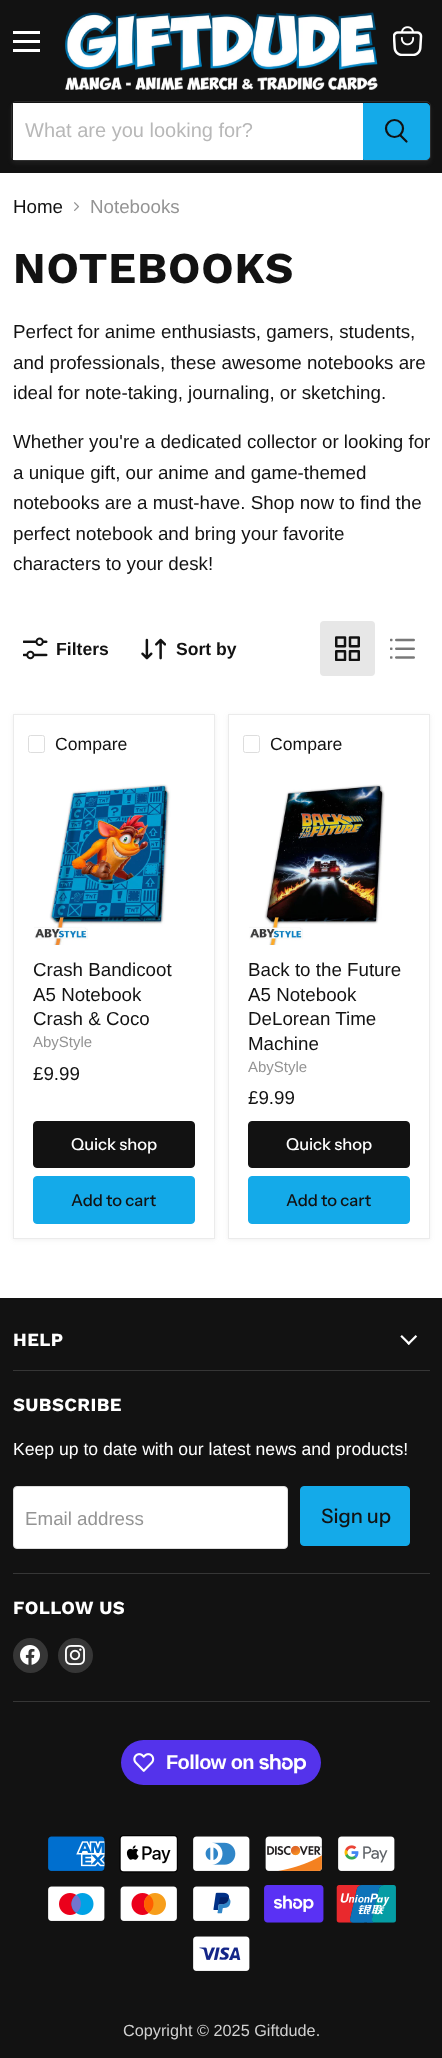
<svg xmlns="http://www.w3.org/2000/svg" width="442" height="2058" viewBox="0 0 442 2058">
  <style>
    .t1 { font: 20px Liberation Sans; fill: #b8b8b8; }
    .t2 { font: 18.75px Liberation Sans; fill: #121212; }
    .t3 { font: 18.75px Liberation Sans; fill: #949494; }
    .t4 { font: bold 44px Work Sans; letter-spacing: 0.9px; fill: #121212; }
    .t5 { font: bold 17.6px Liberation Sans; fill: #121212; }
    .t6 { font: 17.6px Liberation Sans; fill: #121212; }
    .t7 { font: 15px Liberation Sans; fill: #949494; }
    .t8 { font: 500 16.5px Instrument Sans; fill: #fff; }
    .t9 { font: 500 16.5px Instrument Sans; fill: #121212; }
    .t10 { font: bold 18.5px Work Sans; letter-spacing: 0.4px; fill: #fff; }
    .t11 { font: 17.6px Liberation Sans; fill: #fff; }
    .t12 { font: 500 20px Instrument Sans; fill: #121212; }
    .t13 { font: bold 20px Liberation Sans; letter-spacing: -0.6px; fill: #fff; }
    .t14 { font: 16.25px Liberation Sans; fill: #d0d0d0; }
  </style>
  <rect width="100%" height="100%" fill="#fff"/>
  <rect x="0" y="0" width="442" height="173" fill="#121212"/>
  <rect x="13" y="31" width="27" height="3" fill="#fff"/>
  <rect x="13" y="40" width="27" height="3" fill="#fff"/>
  <rect x="13" y="49" width="27" height="3" fill="#fff"/>
  <image x="393" y="26" width="30" height="30" href="images/1.png"/>
  <image x="65" y="12" width="313" height="78" href="images/2.png"/>
  <rect x="11" y="104" width="420" height="60" rx="5" fill="#8080801c" filter="blur(2px)"/>
  <rect x="11.5" y="101.5" width="419" height="59" rx="4.5" fill="none" stroke="#80808033"/>
  <rect x="13" y="103" width="350" height="57" fill="#fff"/>
  <text x="25" y="137" class="t1">What are you looking for?</text>
  <path d="M363.5 103.5H426C428 103.5 429.5 105 429.5 107V156C429.5 158 428 159.5 426 159.5H363.5Z" fill="#14aae9" stroke="#14aae9"/>
  <path d="M406.5 141.5L400.5 135.5" fill="none" stroke="#121212" stroke-width="2.2" stroke-linecap="round"/>
  <circle cx="394.5" cy="128.5" r="8.5" fill="none" stroke="#121212" stroke-width="2.2"/>
  <text x="13" y="213" class="t2">Home</text>
  <image x="74" y="202" width="6" height="9" href="images/3.png"/>
  <text x="90" y="213" class="t3">Notebooks</text>
  <text x="13" y="283" class="t4">NOTEBOOKS</text>
  <text x="13" y="338" class="t2">Perfect for anime enthusiasts, gamers, students,</text>
  <text x="13" y="369" class="t2">and professionals, these awesome notebooks are</text>
  <text x="13" y="399" class="t2">ideal for note-taking, journaling, or sketching.</text>
  <text x="13" y="448" class="t2">Whether you're a dedicated collector or looking for</text>
  <text x="13" y="479" class="t2">a unique gift, our anime and game-themed</text>
  <text x="13" y="509" class="t2">notebooks are a must-have. Shop now to find the</text>
  <text x="13" y="540" class="t2">perfect notebook and bring your favorite</text>
  <text x="13" y="570" class="t2">characters to your desk!</text>
  <image x="23" y="637" width="25" height="23" href="images/4.png"/>
  <text x="56" y="655" class="t5">Filters</text>
  <image x="141" y="638" width="25" height="22" href="images/5.png"/>
  <text x="176" y="655" class="t5">Sort by</text>
  <rect x="320" y="621" width="55" height="55" rx="4" fill="#e7e7e7"/>
  <image x="335" y="636" width="25" height="25" href="images/6.png"/>
  <image x="390" y="638" width="25" height="21" href="images/7.png"/>
  <rect x="13" y="715" width="202" height="525" fill="#8080801c" filter="blur(2.5px)"/>
  <rect x="13.5" y="714.5" width="201" height="524" fill="#fff" stroke="#ebebeb"/>
  <rect x="28.5" y="735.5" width="16" height="17" rx="2" fill="none" stroke="#ddd"/>
  <text x="55" y="750" class="t6">Compare</text>
  <image x="34" y="784" width="137" height="161" href="images/8.png"/>
  <text x="33" y="976" class="t2">Crash Bandicoot</text>
  <text x="33" y="1001" class="t2">A5 Notebook</text>
  <text x="33" y="1025" class="t2">Crash &amp; Coco</text>
  <text x="33" y="1047" class="t7">AbyStyle</text>
  <text x="33" y="1080" class="t2">£9.99</text>
  <rect x="33.5" y="1121.5" width="161" height="46" rx="3.5" fill="#121212" stroke="#121212"/>
  <text x="71" y="1150" class="t8">Quick shop</text>
  <rect x="33.5" y="1176.5" width="161" height="47" rx="3.5" fill="#14aae9" stroke="#14aae9"/>
  <text x="71" y="1206" class="t9">Add to cart</text>
  <rect x="228" y="715" width="202" height="525" fill="#8080801c" filter="blur(2.5px)"/>
  <rect x="228.5" y="714.5" width="201" height="524" fill="#fff" stroke="#ebebeb"/>
  <rect x="243.5" y="735.5" width="16" height="17" rx="2" fill="none" stroke="#ddd"/>
  <text x="270" y="750" class="t6">Compare</text>
  <image x="249" y="784" width="136" height="161" href="images/9.png"/>
  <text x="248" y="976" class="t2">Back to the Future</text>
  <text x="248" y="1001" class="t2">A5 Notebook</text>
  <text x="248" y="1025" class="t2">DeLorean Time</text>
  <text x="248" y="1050" class="t2">Machine</text>
  <text x="248" y="1072" class="t7">AbyStyle</text>
  <text x="248" y="1104" class="t2">£9.99</text>
  <rect x="248.5" y="1121.5" width="161" height="46" rx="3.5" fill="#121212" stroke="#121212"/>
  <text x="286" y="1150" class="t8">Quick shop</text>
  <rect x="248.5" y="1176.5" width="161" height="47" rx="3.5" fill="#14aae9" stroke="#14aae9"/>
  <text x="286" y="1206" class="t9">Add to cart</text>
  <rect x="0" y="1298" width="442" height="760" fill="#121212"/>
  <rect x="13" y="1370" width="417" height="1" fill="#363636"/>
  <text x="13" y="1346" class="t10">HELP</text>
  <image x="400" y="1335" width="18" height="10" href="images/10.png"/>
  <rect x="13" y="1573" width="417" height="1" fill="#363636"/>
  <text x="13" y="1411" class="t10">SUBSCRIBE</text>
  <text x="13" y="1455" class="t11">Keep up to date with our latest news and products!</text>
  <rect x="13.5" y="1486.5" width="274" height="62" rx="3.5" fill="#fff" stroke="#ddd"/>
  <text x="25" y="1525" class="t3">Email address</text>
  <rect x="300.5" y="1486.5" width="109" height="59" rx="3.5" fill="#14aae9" stroke="#14aae9"/>
  <text x="321" y="1523" class="t12">Sign up</text>
  <rect x="13" y="1701" width="417" height="1" fill="#363636"/>
  <text x="13" y="1614" class="t10">FOLLOW US</text>
  <circle cx="30.5" cy="1655.5" r="17.5" fill="#363636"/>
  <image x="20" y="1645" width="20" height="20" href="images/11.png"/>
  <circle cx="75.5" cy="1655.5" r="17.5" fill="#363636"/>
  <image x="65" y="1645" width="20" height="20" href="images/12.png"/>
  <rect x="121" y="1740" width="200" height="45" rx="22.5" fill="#5433eb"/>
  <image x="133" y="1753" width="22" height="19" href="images/13.png"/>
  <text x="166" y="1769" class="t13">Follow on</text>
  <image x="259" y="1754" width="47" height="20" href="images/14.png"/>
  <image x="48" y="1836" width="57" height="35" href="images/15.png"/>
  <image x="119" y="1835" width="59" height="38" href="images/16.png"/>
  <image x="193" y="1836" width="57" height="35" href="images/17.png"/>
  <image x="265" y="1836" width="57" height="35" href="images/18.png"/>
  <image x="338" y="1836" width="57" height="35" href="images/19.png"/>
  <image x="48" y="1886" width="57" height="35" href="images/20.png"/>
  <image x="120" y="1886" width="57" height="35" href="images/21.png"/>
  <image x="193" y="1886" width="57" height="35" href="images/22.png"/>
  <image x="264" y="1885" width="60" height="38" href="images/23.png"/>
  <image x="336" y="1885" width="60" height="38" href="images/24.png"/>
  <image x="193" y="1936" width="57" height="35" href="images/25.png"/>
  <text x="123" y="2036" class="t14">Copyright © 2025 Giftdude.</text>
</svg>
